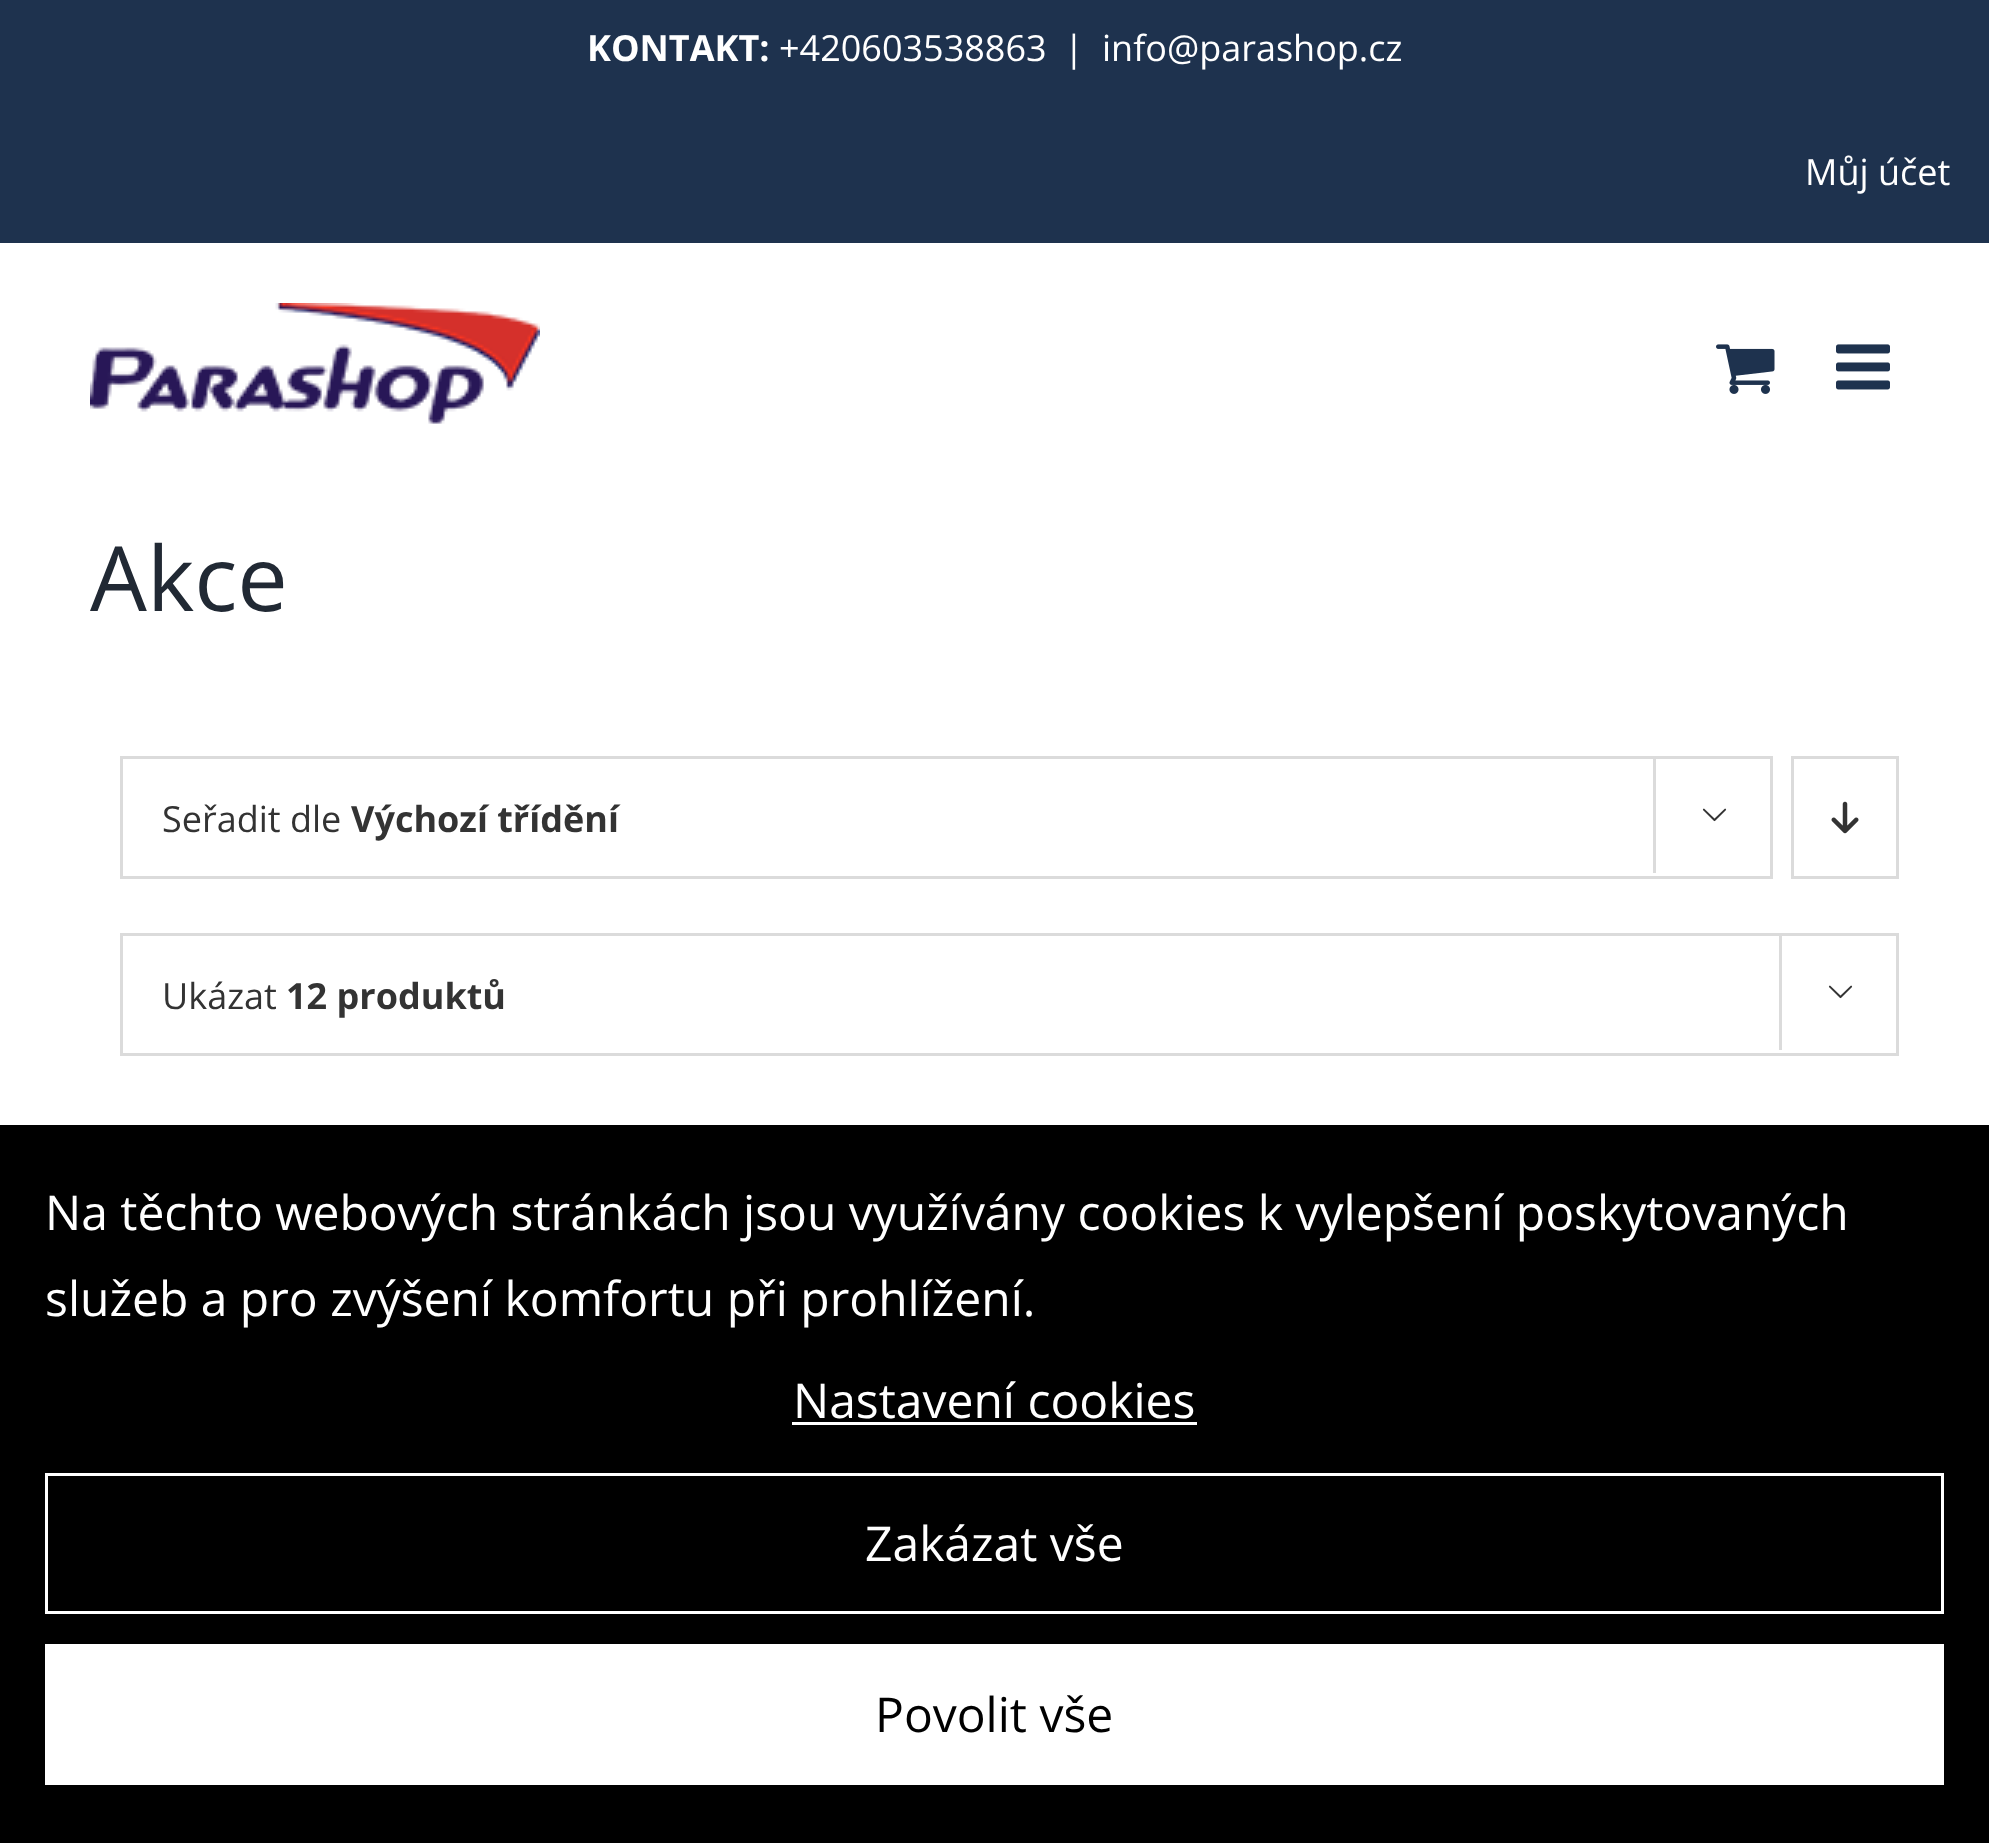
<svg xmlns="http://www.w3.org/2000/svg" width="1989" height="1843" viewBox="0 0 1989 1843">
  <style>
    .t1 { font: bold 36px Open Sans; fill: #fff; }
    .t2 { font: 36px Open Sans; fill: #fff; }
    .t3 { font: 90px Open Sans; fill: #212934; }
    .t4 { font: 36px Open Sans; fill: #333; }
    .t5 { font: bold 36px Open Sans; fill: #333; }
    .t6 { font: 48px Open Sans; fill: #fff; }
    .t7 { font: 48px Open Sans; fill: #000; }
  </style>
  <rect width="100%" height="100%" fill="#fff"/>
  <rect x="0" y="0" width="1989" height="243" fill="#1e324e"/>
  <text x="587" y="61" class="t1">KONTAKT:</text>
  <text x="779" y="61" class="t2">+420603538863</text>
  <text x="1064" y="61" class="t2">|</text>
  <text x="1102" y="61" class="t2">info@parashop.cz</text>
  <text x="1805" y="185" class="t2">Můj účet</text>
  <image x="90" y="303" width="450" height="121" href="images/1.png"/>
  <image x="1716" y="344" width="59" height="50" href="images/2.png"/>
  <image x="1836" y="344" width="54" height="46" href="images/3.png"/>
  <text x="90" y="611" class="t3">Akce</text>
  <rect x="121.5" y="757.5" width="1650" height="120" fill="none" stroke="#dbdbdb" stroke-width="3"/>
  <text x="162" y="832" class="t4">Seřadit dle</text>
  <text x="351" y="832" class="t5">Výchozí třídění</text>
  <rect x="1653" y="756" width="3" height="117" fill="#dbdbdb"/>
  <image x="1702" y="808" width="25" height="14" href="images/4.png"/>
  <rect x="1792.5" y="757.5" width="105" height="120" fill="none" stroke="#dbdbdb" stroke-width="3"/>
  <image x="1831" y="801" width="28" height="33" href="images/5.png"/>
  <rect x="121.5" y="934.5" width="1776" height="120" fill="none" stroke="#dbdbdb" stroke-width="3"/>
  <text x="162" y="1009" class="t4">Ukázat</text>
  <text x="286" y="1009" class="t5">12 produktů</text>
  <rect x="1779" y="933" width="3" height="117" fill="#dbdbdb"/>
  <image x="1828" y="985" width="25" height="14" href="images/4.png"/>
  <rect x="0" y="1125" width="1989" height="718" fill="#000"/>
  <text x="45" y="1230" class="t6">Na těchto webových stránkách jsou využívány cookies k vylepšení poskytovaných</text>
  <text x="45" y="1316" class="t6">služeb a pro zvýšení komfortu při prohlížení.</text>
  <text x="793" y="1418" class="t6">Nastavení cookies</text>
  <rect x="792" y="1422" width="405" height="3" fill="#fff"/>
  <rect x="46.5" y="1474.5" width="1896" height="138" fill="none" stroke="#fff" stroke-width="3"/>
  <text x="865" y="1561" class="t6">Zakázat vše</text>
  <rect x="45" y="1644" width="1899" height="141" fill="#fff"/>
  <text x="875" y="1732" class="t7">Povolit vše</text>
</svg>
